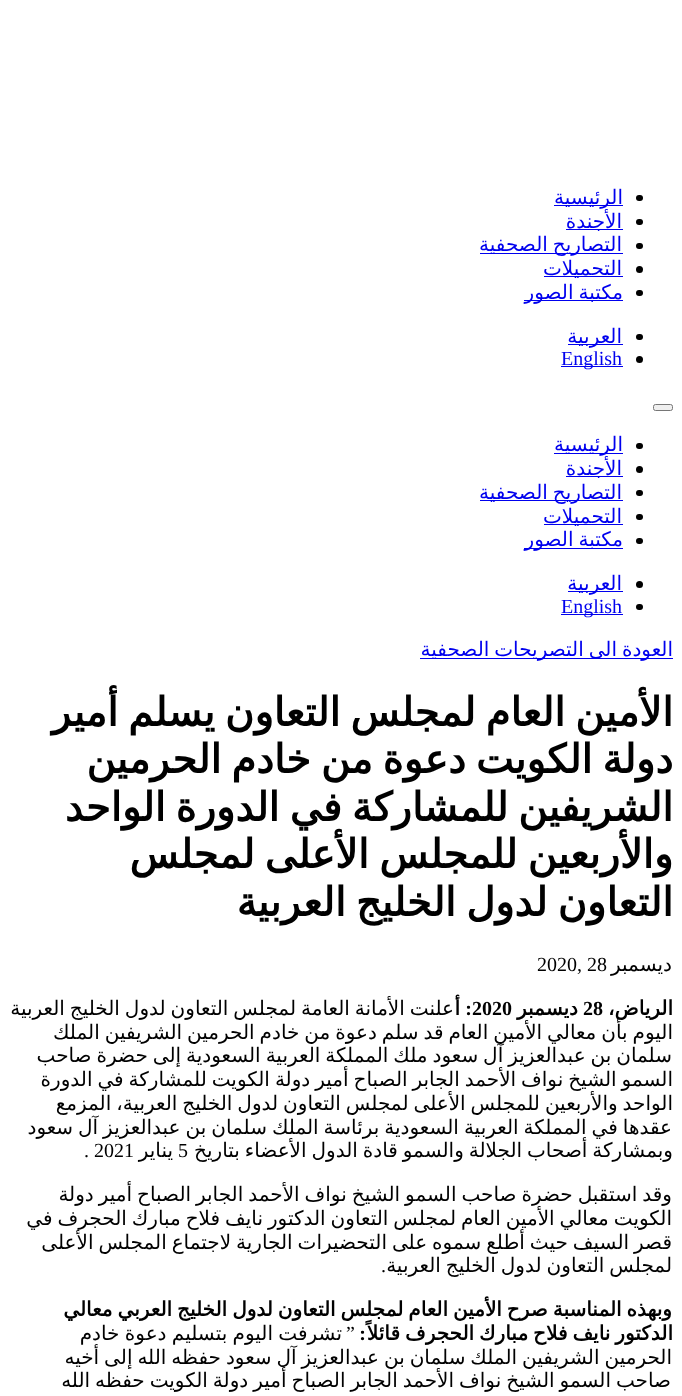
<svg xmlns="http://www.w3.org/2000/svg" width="682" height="1396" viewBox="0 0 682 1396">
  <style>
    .t1 { font: 20px DejaVu Sans; direction: rtl; fill: #00e; }
    .t2 { font: 20px Liberation Serif; fill: #00e; }
    .t3 { font: bold 40px DejaVu Sans; direction: rtl; fill: #000; }
    .t4 { font: 20px DejaVu Sans; direction: rtl; fill: #000; }
    .t5 { font: 20px Liberation Serif; fill: #000; }
    .t6 { font: bold 20px DejaVu Sans; direction: rtl; fill: #000; }
    .t7 { font: bold 20px Liberation Serif; fill: #000; }
    .t8 { font: bold 20px Liberation Serif; direction: rtl; fill: #000; }
    .t9 { font: 20px Liberation Serif; direction: rtl; fill: #000; }
  </style>
  <rect width="100%" height="100%" fill="#fff"/>
  <rect x="636" y="195" width="7" height="6" rx="3" fill="#000"/>
  <rect x="554" y="205" width="69" height="1" fill="#00e"/>
  <text x="623" y="204" class="t1">الرئيسية</text>
  <rect x="636" y="219" width="7" height="6" rx="3" fill="#000"/>
  <rect x="566" y="229" width="57" height="1" fill="#00e"/>
  <text x="622" y="228" class="t1">الأجندة</text>
  <rect x="636" y="243" width="7" height="6" rx="3" fill="#000"/>
  <rect x="480" y="253" width="143" height="1" fill="#00e"/>
  <text x="622" y="251" word-spacing="-1.4" class="t1">التصاريح الصحفية</text>
  <circle cx="639.5" cy="269.5" r="3.5" fill="#000"/>
  <rect x="544" y="276" width="79" height="1" fill="#00e"/>
  <text x="622" y="275" class="t1">التحميلات</text>
  <rect x="636" y="290" width="7" height="6" rx="3" fill="#000"/>
  <rect x="524" y="300" width="99" height="1" fill="#00e"/>
  <text x="623" y="299" word-spacing="-1.4" class="t1">مكتبة الصور</text>
  <rect x="636" y="334" width="7" height="6" rx="3" fill="#000"/>
  <rect x="568" y="344" width="55" height="1" fill="#00e"/>
  <text x="622" y="343" class="t1">العربية</text>
  <circle cx="639.5" cy="359.5" r="3.5" fill="#000"/>
  <rect x="561" y="366" width="62" height="1" fill="#00e"/>
  <text x="561" y="365" class="t2">English</text>
  <rect x="653.5" y="404.5" width="19" height="6" rx="2" fill="#efefef" stroke="#767676"/>
  <rect x="636" y="443" width="7" height="6" rx="3" fill="#000"/>
  <rect x="554" y="453" width="69" height="1" fill="#00e"/>
  <text x="623" y="451" class="t1">الرئيسية</text>
  <circle cx="639.5" cy="469.5" r="3.5" fill="#000"/>
  <rect x="566" y="476" width="57" height="1" fill="#00e"/>
  <text x="622" y="475" class="t1">الأجندة</text>
  <rect x="636" y="490" width="7" height="6" rx="3" fill="#000"/>
  <rect x="480" y="500" width="143" height="1" fill="#00e"/>
  <text x="622" y="499" word-spacing="-1.4" class="t1">التصاريح الصحفية</text>
  <rect x="636" y="514" width="7" height="6" rx="3" fill="#000"/>
  <rect x="544" y="524" width="79" height="1" fill="#00e"/>
  <text x="622" y="523" class="t1">التحميلات</text>
  <rect x="636" y="538" width="7" height="6" rx="3" fill="#000"/>
  <rect x="524" y="548" width="99" height="1" fill="#00e"/>
  <text x="623" y="546" word-spacing="-1.4" class="t1">مكتبة الصور</text>
  <circle cx="639.5" cy="584.5" r="3.5" fill="#000"/>
  <rect x="568" y="591" width="55" height="1" fill="#00e"/>
  <text x="622" y="590" class="t1">العربية</text>
  <rect x="636" y="604" width="7" height="6" rx="3" fill="#000"/>
  <rect x="561" y="614" width="62" height="1" fill="#00e"/>
  <text x="561" y="613" class="t2">English</text>
  <rect x="420" y="658" width="253" height="1" fill="#00e"/>
  <text x="673" y="656" word-spacing="-1.4" class="t1">العودة الى التصريحات الصحفية</text>
  <text x="673" y="726" word-spacing="-2.75" class="t3">الأمين العام لمجلس التعاون يسلم أمير</text>
  <text x="673" y="773" word-spacing="-2.75" class="t3">دولة الكويت دعوة من خادم الحرمين</text>
  <text x="673" y="821" word-spacing="-2.75" class="t3">الشريفين للمشاركة في الدورة الواحد</text>
  <text x="673" y="868" word-spacing="-2.75" class="t3">والأربعين للمجلس الأعلى لمجلس</text>
  <text x="673" y="916" word-spacing="-2.75" class="t3">التعاون لدول الخليج العربية</text>
  <text x="672" y="971" class="t4">ديسمبر</text>
  <text x="537" y="971" class="t5">2020, 28</text>
  <text x="460" y="1015" class="t6">أ</text>
  <text x="454" y="1015" word-spacing="-1.4" class="t4">علنت الأمانة العامة لمجلس التعاون لدول الخليج العربية</text>
  <text x="673" y="1015" class="t6">الرياض،</text>
  <text x="583" y="1015" class="t7">28</text>
  <text x="578" y="1015" class="t6">ديسمبر</text>
  <text x="472" y="1015" class="t7">2020</text>
  <text x="472" y="1015" class="t8">:</text>
  <text x="673" y="1039" word-spacing="-1.4" class="t4">اليوم بأن معالي الأمين العام قد سلم دعوة من خادم الحرمين الشريفين الملك</text>
  <text x="672" y="1062" word-spacing="-1.4" class="t4">سلمان بن عبدالعزيز آل سعود ملك المملكة العربية السعودية إلى حضرة صاحب</text>
  <text x="673" y="1086" word-spacing="-1.4" class="t4">السمو الشيخ نواف الأحمد الجابر الصباح أمير دولة الكويت للمشاركة في الدورة</text>
  <text x="673" y="1110" word-spacing="-1.4" class="t4">الواحد والأربعين للمجلس الأعلى لمجلس التعاون لدول الخليج العربية، المزمع</text>
  <text x="672" y="1134" word-spacing="-1.4" class="t4">عقدها في المملكة العربية السعودية برئاسة الملك سلمان بن عبدالعزيز آل سعود</text>
  <text x="673" y="1157" word-spacing="-1.4" class="t4">وبمشاركة أصحاب الجلالة والسمو قادة الدول الأعضاء بتاريخ</text>
  <text x="178" y="1157" class="t5">5</text>
  <text x="173" y="1157" class="t4">يناير</text>
  <text x="84" y="1157" class="t5">. 2021</text>
  <text x="672" y="1201" word-spacing="-1.4" class="t4">وقد استقبل حضرة صاحب السمو الشيخ نواف الأحمد الجابر الصباح أمير دولة</text>
  <text x="672" y="1225" word-spacing="-1.4" class="t4">الكويت معالي الأمين العام لمجلس التعاون الدكتور نايف فلاح مبارك الحجرف في</text>
  <text x="672" y="1249" word-spacing="-1.4" class="t4">قصر السيف حيث أطلع سموه على التحضيرات الجارية لاجتماع المجلس الأعلى</text>
  <text x="672" y="1272" word-spacing="-1.4" class="t4">لمجلس التعاون لدول الخليج العربية</text>
  <text x="386" y="1272" class="t9">.</text>
  <text x="672" y="1316" word-spacing="-1.4" class="t6">وبهذه المناسبة صرح الأمين العام لمجلس التعاون لدول الخليج العربي معالي</text>
  <text x="366" y="1340" class="t8">:</text>
  <text x="673" y="1340" word-spacing="-1.4" class="t6">الدكتور نايف فلاح مبارك الحجرف قائلاً</text>
  <text x="355" y="1340" class="t9">”</text>
  <text x="342" y="1340" word-spacing="-1" class="t4">تشرفت اليوم بتسليم دعوة خادم</text>
  <text x="672" y="1364" word-spacing="-1.4" class="t4">الحرمين الشريفين الملك سلمان بن عبدالعزيز آل سعود حفظه الله إلى أخيه</text>
  <text x="671" y="1387" word-spacing="-1.4" class="t4">صاحب السمو الشيخ نواف الأحمد الجابر الصباح أمير دولة الكويت حفظه الله</text>
</svg>
